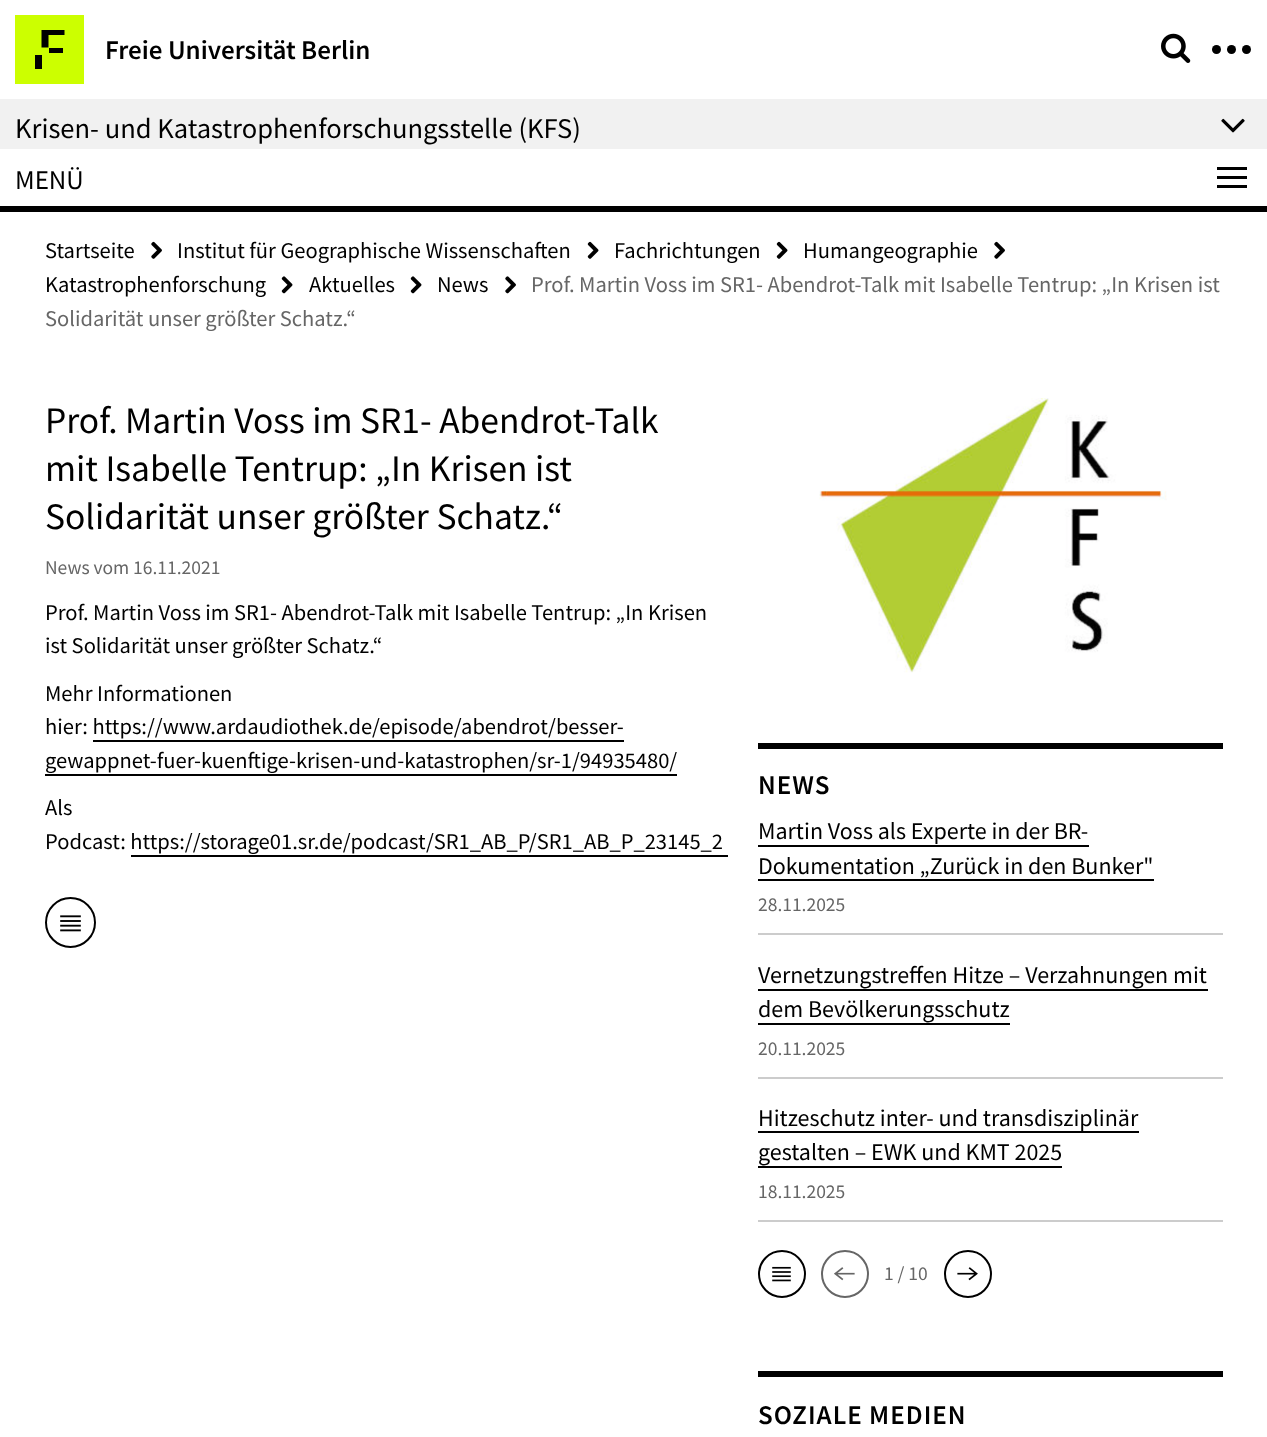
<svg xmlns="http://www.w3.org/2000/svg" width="1267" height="1437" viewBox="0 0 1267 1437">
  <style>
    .t1 { font: 600 27px Source Sans Pro; fill: #000; }
    .t2 { font: 28.5px Source Sans Pro; fill: #000; }
    .t3 { font: 27px Source Sans Pro; fill: #000; }
    .t4 { font: 22.5px Source Sans Pro; fill: #000; }
    .t5 { font: 22.5px Source Sans Pro; fill: #666; }
    .t6 { font: 37.5px Source Sans Pro; fill: #000; }
    .t7 { font: 19.5px Source Sans Pro; fill: #666; }
    .t8 { font: 600 27px Source Sans Pro; letter-spacing: 1px; fill: #000; }
    .t9 { font: 24px Source Sans Pro; fill: #000; }
  </style>
  <rect width="100%" height="100%" fill="#fff"/>
  <rect x="15" y="15" width="69" height="69" fill="#cf0"/>
  <path d="M41.5 30H64.5V35H48.5V47.5H41.5Z" fill="#000"/>
  <rect x="49" y="48" width="14" height="5" fill="#000"/>
  <rect x="35" y="55" width="7" height="14" fill="#000"/>
  <text x="105" y="59" class="t1">Freie Universität Berlin</text>
  <image x="1161" y="33" width="30" height="30" href="images/1.png"/>
  <circle cx="1216.5" cy="49.5" r="4.5" fill="#000"/>
  <circle cx="1231.5" cy="49.5" r="4.5" fill="#000"/>
  <circle cx="1246.5" cy="49.5" r="4.5" fill="#000"/>
  <rect x="0" y="99" width="1267" height="50" fill="#f1f1f1"/>
  <text x="15" y="138" class="t2">Krisen- und Katastrophenforschungsstelle (KFS)</text>
  <image x="1221" y="118" width="24" height="15" href="images/2.png"/>
  <rect x="0" y="206" width="1267" height="6" fill="#000"/>
  <text x="15" y="189" class="t3">MENÜ</text>
  <rect x="1217" y="167" width="30" height="3" fill="#000"/>
  <rect x="1217" y="176" width="30" height="3" fill="#000"/>
  <rect x="1217" y="185" width="30" height="3" fill="#000"/>
  <text x="45" y="258" class="t4">Startseite</text>
  <image x="151" y="241" width="11" height="18" href="images/3.png"/>
  <text x="177" y="258" class="t4">Institut für Geographische Wissenschaften</text>
  <image x="587" y="241" width="12" height="18" href="images/4.png"/>
  <text x="614" y="258" class="t4">Fachrichtungen</text>
  <image x="776" y="241" width="12" height="18" href="images/4.png"/>
  <text x="803" y="258" class="t4">Humangeographie</text>
  <image x="994" y="241" width="11" height="18" href="images/3.png"/>
  <text x="45" y="292" class="t4">Katastrophenforschung</text>
  <image x="281" y="276" width="12" height="18" href="images/5.png"/>
  <text x="309" y="292" class="t4">Aktuelles</text>
  <image x="410" y="276" width="12" height="18" href="images/5.png"/>
  <text x="437" y="292" class="t4">News</text>
  <image x="505" y="276" width="11" height="18" href="images/6.png"/>
  <text x="531" y="292" class="t5">Prof. Martin Voss im SR1- Abendrot-Talk mit Isabelle Tentrup: „In Krisen ist</text>
  <text x="45" y="326" class="t5">Solidarität unser größter Schatz.“</text>
  <text x="45" y="433" class="t6">Prof. Martin Voss im SR1- Abendrot-Talk</text>
  <text x="45" y="481" class="t6">mit Isabelle Tentrup: „In Krisen ist</text>
  <text x="45" y="529" class="t6">Solidarität unser größter Schatz.“</text>
  <text x="45" y="574" class="t7">News vom 16.11.2021</text>
  <text x="45" y="620" class="t4">Prof. Martin Voss im SR1- Abendrot-Talk mit Isabelle Tentrup: „In Krisen</text>
  <text x="45" y="653" class="t4">ist Solidarität unser größter Schatz.“</text>
  <text x="45" y="701" class="t4">Mehr Informationen</text>
  <text x="45" y="734" class="t4">hier: https://www.ardaudiothek.de/episode/abendrot/besser-</text>
  <text x="45" y="768" class="t4">gewappnet-fuer-kuenftige-krisen-und-katastrophen/sr-1/94935480/</text>
  <rect x="93" y="740" width="531" height="2" fill="#000"/>
  <rect x="45" y="774" width="632" height="2" fill="#000"/>
  <text x="45" y="815" class="t4">Als</text>
  <text x="45" y="849" class="t4">Podcast: https://storage01.sr.de/podcast/SR1_AB_P/SR1_AB_P_23145_2</text>
  <rect x="131" y="855" width="597" height="2" fill="#000"/>
  <circle cx="70.5" cy="922.5" r="24.5" fill="none" stroke="#000" stroke-width="2"/>
  <image x="60" y="915" width="21" height="17" href="images/7.png"/>
  <image x="819" y="398" width="348" height="275" href="images/8.png"/>
  <rect x="758" y="743" width="465" height="6" fill="#000"/>
  <text x="758" y="794" class="t8">NEWS</text>
  <rect x="758" y="933" width="465" height="2" fill="#ccc"/>
  <text x="758" y="839" class="t9">Martin Voss als Experte in der BR-</text>
  <rect x="758" y="845" width="331" height="2" fill="#000"/>
  <text x="758" y="874" class="t9">Dokumentation „Zurück in den Bunker"</text>
  <rect x="758" y="879" width="396" height="2" fill="#000"/>
  <text x="758" y="911" class="t7">28.11.2025</text>
  <rect x="758" y="1077" width="465" height="2" fill="#ccc"/>
  <text x="758" y="983" class="t9">Vernetzungstreffen Hitze – Verzahnungen mit</text>
  <rect x="758" y="989" width="450" height="2" fill="#000"/>
  <text x="758" y="1017" class="t9">dem Bevölkerungsschutz</text>
  <rect x="758" y="1023" width="252" height="2" fill="#000"/>
  <text x="758" y="1055" class="t7">20.11.2025</text>
  <rect x="758" y="1220" width="465" height="2" fill="#ccc"/>
  <text x="758" y="1126" class="t9">Hitzeschutz inter- und transdisziplinär</text>
  <rect x="758" y="1131" width="381" height="2" fill="#000"/>
  <text x="758" y="1160" class="t9">gestalten – EWK und KMT 2025</text>
  <rect x="758" y="1166" width="304" height="2" fill="#000"/>
  <text x="758" y="1198" class="t7">18.11.2025</text>
  <circle cx="782" cy="1274" r="23" fill="none" stroke="#000" stroke-width="2"/>
  <image x="772" y="1266" width="19" height="16" href="images/9.png"/>
  <circle cx="845" cy="1274" r="23" fill="none" stroke="#666" stroke-width="2"/>
  <image x="834" y="1267" width="21" height="14" href="images/10.png"/>
  <text x="884" y="1280" class="t7">1 / 10</text>
  <circle cx="968" cy="1274" r="23" fill="none" stroke="#000" stroke-width="2"/>
  <image x="957" y="1267" width="21" height="14" href="images/11.png"/>
  <rect x="758" y="1371" width="465" height="6" fill="#000"/>
  <text x="758" y="1424" class="t8">SOZIALE MEDIEN</text>
</svg>
